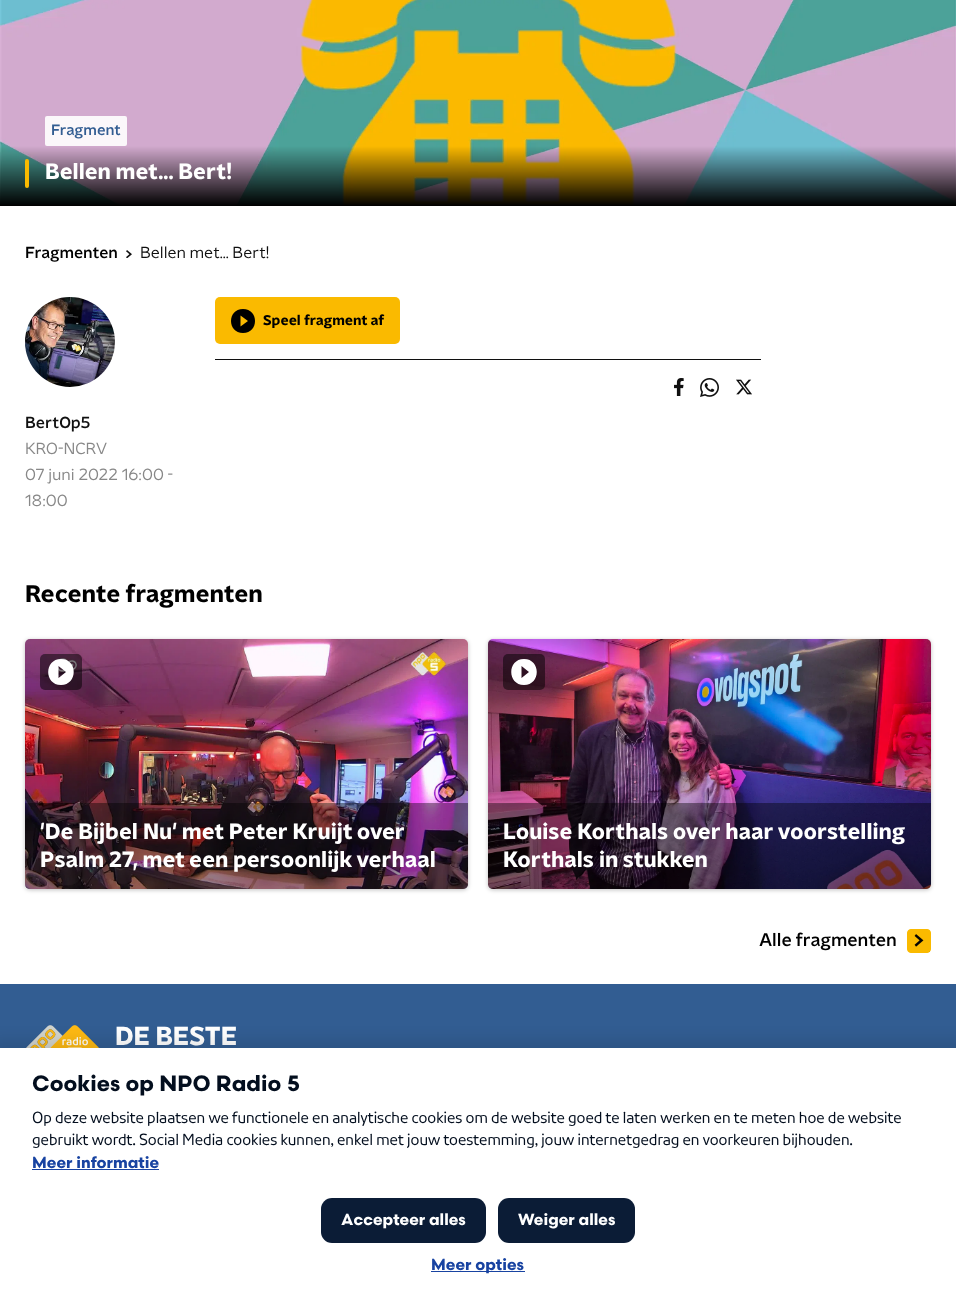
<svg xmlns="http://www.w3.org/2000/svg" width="956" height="1301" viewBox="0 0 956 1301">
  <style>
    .t1 { font: 500 15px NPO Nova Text; fill: #325d92; }
    .t2 { font: bold 22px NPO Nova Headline; fill: #fff; }
    .t3 { font: 500 16px NPO Nova Text; fill: #000; }
    .t4 { font: 16px NPO Nova Text; fill: #101010; }
    .t5 { font: bold 14px NPO Nova Headline; fill: #000; }
    .t6 { font: 500 16px NPO Nova Text; fill: #101010; }
    .t7 { font: 16px NPO Nova Text; fill: #888; }
    .t8 { font: bold 24px NPO Nova Headline; fill: #000; }
    .t9 { font: 500 18px NPO Nova Text; fill: #000; }
    .t10 { font: bold 26px NPO Nova Headline; fill: #fff; }
    .t11 { font: bold 22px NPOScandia; fill: #030e1e; }
    .t12 { font: 16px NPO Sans; fill: #030e1e; }
    .t13 { font: bold 16px NPOScandia; fill: #1843a1; }
    .t14 { font: bold 16px NPOScandia; fill: #fff; }
  </style>
  <rect width="100%" height="100%" fill="#fff"/>
  <image x="0" y="0" width="956" height="206" href="images/1.png"/>
  <rect x="45" y="116" width="82" height="30" rx="2" fill="#fbf7fa"/>
  <text x="51" y="135" class="t1">Fragment</text>
  <rect x="25" y="159" width="4" height="29" rx="2" fill="#faba00"/>
  <text x="45" y="179" class="t2">Bellen met... Bert!</text>
  <text x="25" y="258" class="t3">Fragmenten</text>
  <image x="126" y="250" width="6" height="8" href="images/2.png"/>
  <text x="140" y="258" class="t4">Bellen met... Bert!</text>
  <rect x="215" y="297" width="185" height="47" rx="5" fill="#faba00"/>
  <path d="M243 309C227 309 227 333 243 333C259 333 259 309 243 309ZM240.5 326.5V315.5L248 321Z" fill="#000"/>
  <text x="263" y="325" class="t5">Speel fragment af</text>
  <rect x="215" y="359" width="546" height="1" fill="#101010"/>
  <image x="674" y="378" width="10" height="18" href="images/3.png"/>
  <image x="700" y="378" width="19" height="19" href="images/4.png"/>
  <image x="736" y="379" width="16" height="16" href="images/5.png"/>
  <image x="25" y="297" width="90" height="90" href="images/6.png"/>
  <text x="25" y="428" class="t6">BertOp5</text>
  <text x="25" y="454" class="t7">KRO-NCRV</text>
  <text x="25" y="480" class="t7">07 juni 2022 16:00 -</text>
  <text x="25" y="506" class="t7">18:00</text>
  <text x="25" y="602" class="t8">Recente fragmenten</text>
  <rect x="25" y="640" width="443" height="250" rx="5" fill="#00000040" filter="blur(2px)"/>
  <image x="25" y="639" width="443" height="250" href="images/7.png"/>
  <rect x="40" y="654" width="42" height="36" rx="5" fill="#00000080"/>
  <path d="M61 659C44 659 44 685 61 685C78 685 78 659 61 659ZM58.5 678V666L66 672Z" fill="#fff"/>
  <path d="M25 803H468V884C468 887 466 889 463 889H30C27 889 25 887 25 884Z" fill="#00000066"/>
  <text x="40" y="839" class="t2">'De Bijbel Nu' met Peter Kruijt over</text>
  <text x="40" y="867" class="t2">Psalm 27, met een persoonlijk verhaal</text>
  <rect x="488" y="640" width="443" height="250" rx="5" fill="#00000040" filter="blur(2px)"/>
  <image x="488" y="639" width="443" height="250" href="images/8.png"/>
  <rect x="503" y="654" width="42" height="36" rx="5" fill="#00000080"/>
  <path d="M524 659C507 659 507 685 524 685C541 685 541 659 524 659ZM521.5 678V666L529 672Z" fill="#fff"/>
  <path d="M488 803H931V884C931 887 929 889 926 889H493C490 889 488 887 488 884Z" fill="#00000066"/>
  <text x="503" y="839" class="t2">Louise Korthals over haar voorstelling</text>
  <text x="503" y="867" class="t2">Korthals in stukken</text>
  <text x="759" y="946" class="t9">Alle fragmenten</text>
  <image x="907" y="929" width="24" height="24" href="images/9.png"/>
  <rect x="0" y="984" width="956" height="64" fill="#325d92"/>
  <image x="26" y="1025" width="73" height="23" href="images/10.png"/>
  <text x="115" y="1045" class="t10">DE BESTE</text>
  <rect x="-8" y="1040" width="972" height="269" fill="#0000001a" filter="blur(7.5px)"/>
  <rect x="0" y="1048" width="956" height="253" fill="#fff"/>
  <text x="32" y="1091" class="t11">Cookies op NPO Radio 5</text>
  <text x="32" y="1123" class="t12">Op deze website plaatsen we functionele en analytische cookies om de website goed te laten werken en te meten hoe de website</text>
  <text x="32" y="1145" class="t12">gebruikt wordt. Social Media cookies kunnen, enkel met jouw toestemming, jouw internetgedrag en voorkeuren bijhouden.</text>
  <text x="32" y="1168" class="t13">Meer informatie</text>
  <rect x="32" y="1169" width="127" height="1" fill="#1843a1"/>
  <rect x="321" y="1198" width="165" height="45" rx="11" fill="#0b1c36"/>
  <text x="341" y="1225" class="t14">Accepteer alles</text>
  <rect x="498" y="1198" width="137" height="45" rx="11" fill="#0b1c36"/>
  <text x="518" y="1225" class="t14">Weiger alles</text>
  <rect x="431" y="1271" width="94" height="1" fill="#1843a1"/>
  <text x="431" y="1270" class="t13">Meer opties</text>
</svg>
